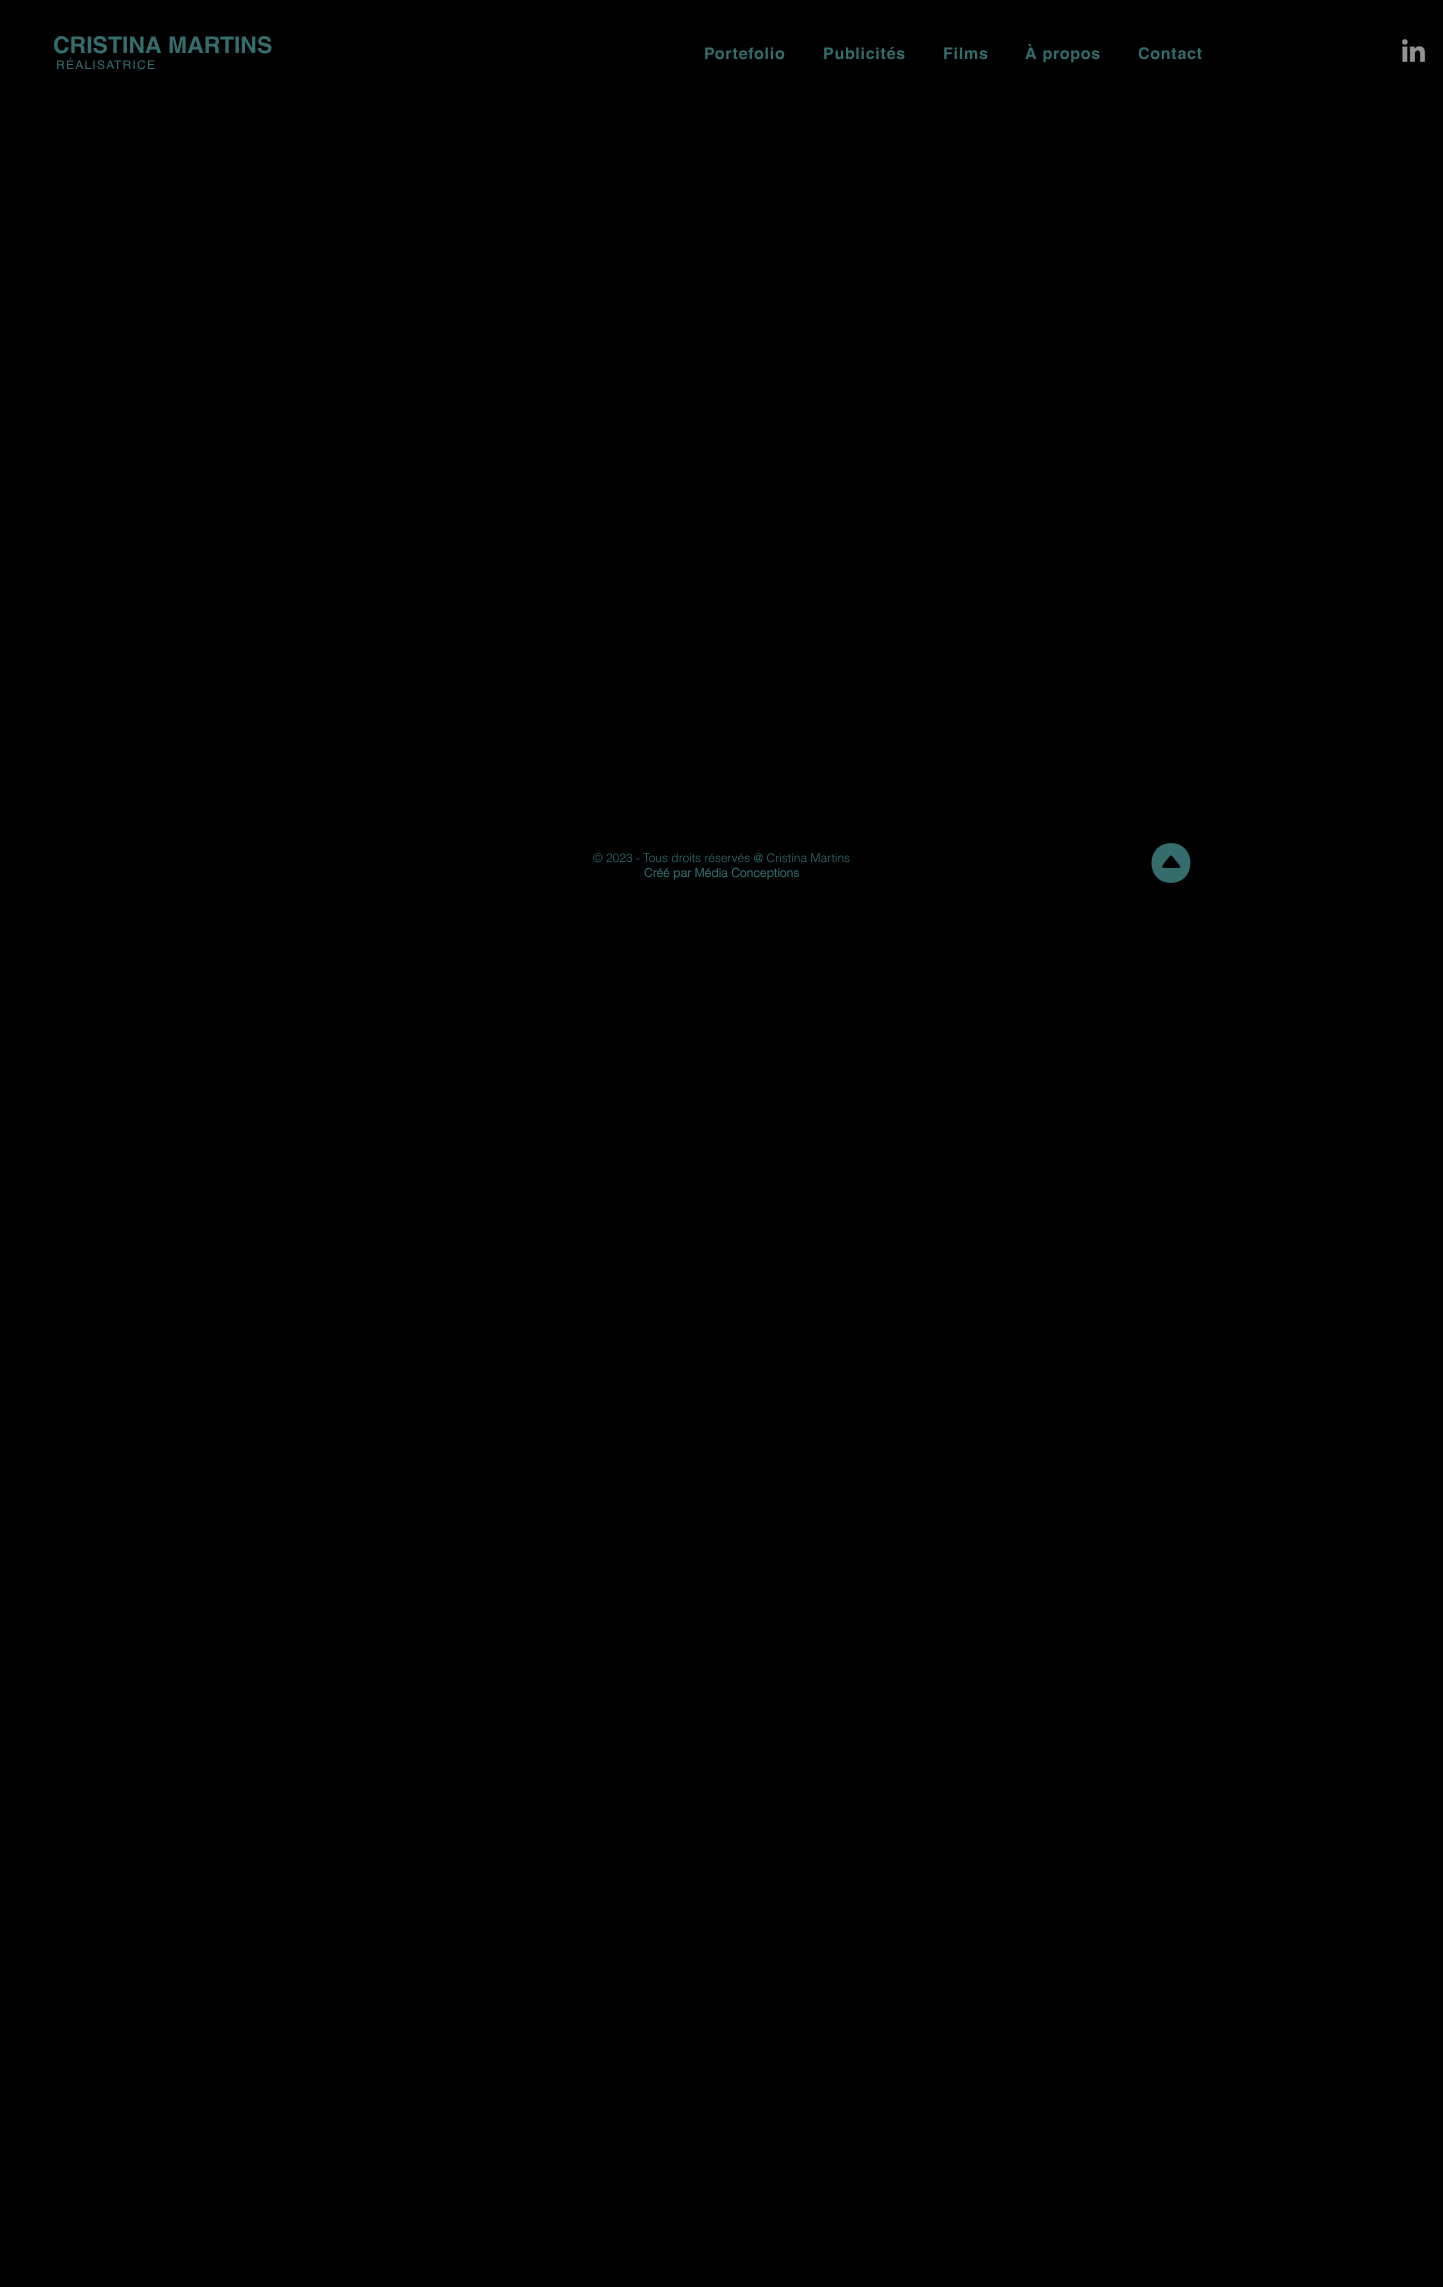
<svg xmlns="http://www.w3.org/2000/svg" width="1443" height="2287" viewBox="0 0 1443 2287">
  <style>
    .t1 { font: bold 23px helvetica; fill: #356c6c; }
    .t2 { font: 12px helvetica; letter-spacing: 1.25px; fill: #356c6c; }
    .t3 { font: bold 16px helvetica; letter-spacing: 0.75px; fill: #356c6c; }
    .t4 { font: 300 12px helvetica; fill: #356c6c; }
    .t5 { font: bold 12px 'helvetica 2'; fill: #356c6c; }
  </style>
  <rect width="100%" height="100%" fill="#000"/>
  <text x="53" y="53" class="t1">CRISTINA MARTINS</text>
  <text x="56" y="69" class="t2">RÉALISATRICE</text>
  <text x="704" y="59" class="t3">Portefolio</text>
  <text x="823" y="59" class="t3">Publicités</text>
  <text x="943" y="59" class="t3">Films</text>
  <text x="1025" y="59" class="t3">À propos</text>
  <text x="1138" y="59" class="t3">Contact</text>
  <image x="1402" y="39" width="24" height="23" href="images/1.png"/>
  <text x="593" y="862" class="t4">© 2023 - Tous droits réservés @ Cristina Martins</text>
  <text x="644" y="877" class="t5">Créé par Média Conceptions</text>
  <path d="M1171 843C1145 843 1145 883 1171 883C1197 883 1197 843 1171 843ZM1179 868H1166C1160 868 1162 866 1165 862L1170 856C1172 854 1175 860 1176 861C1176 861 1183 868 1179 868Z" fill="#356c6c"/>
</svg>
